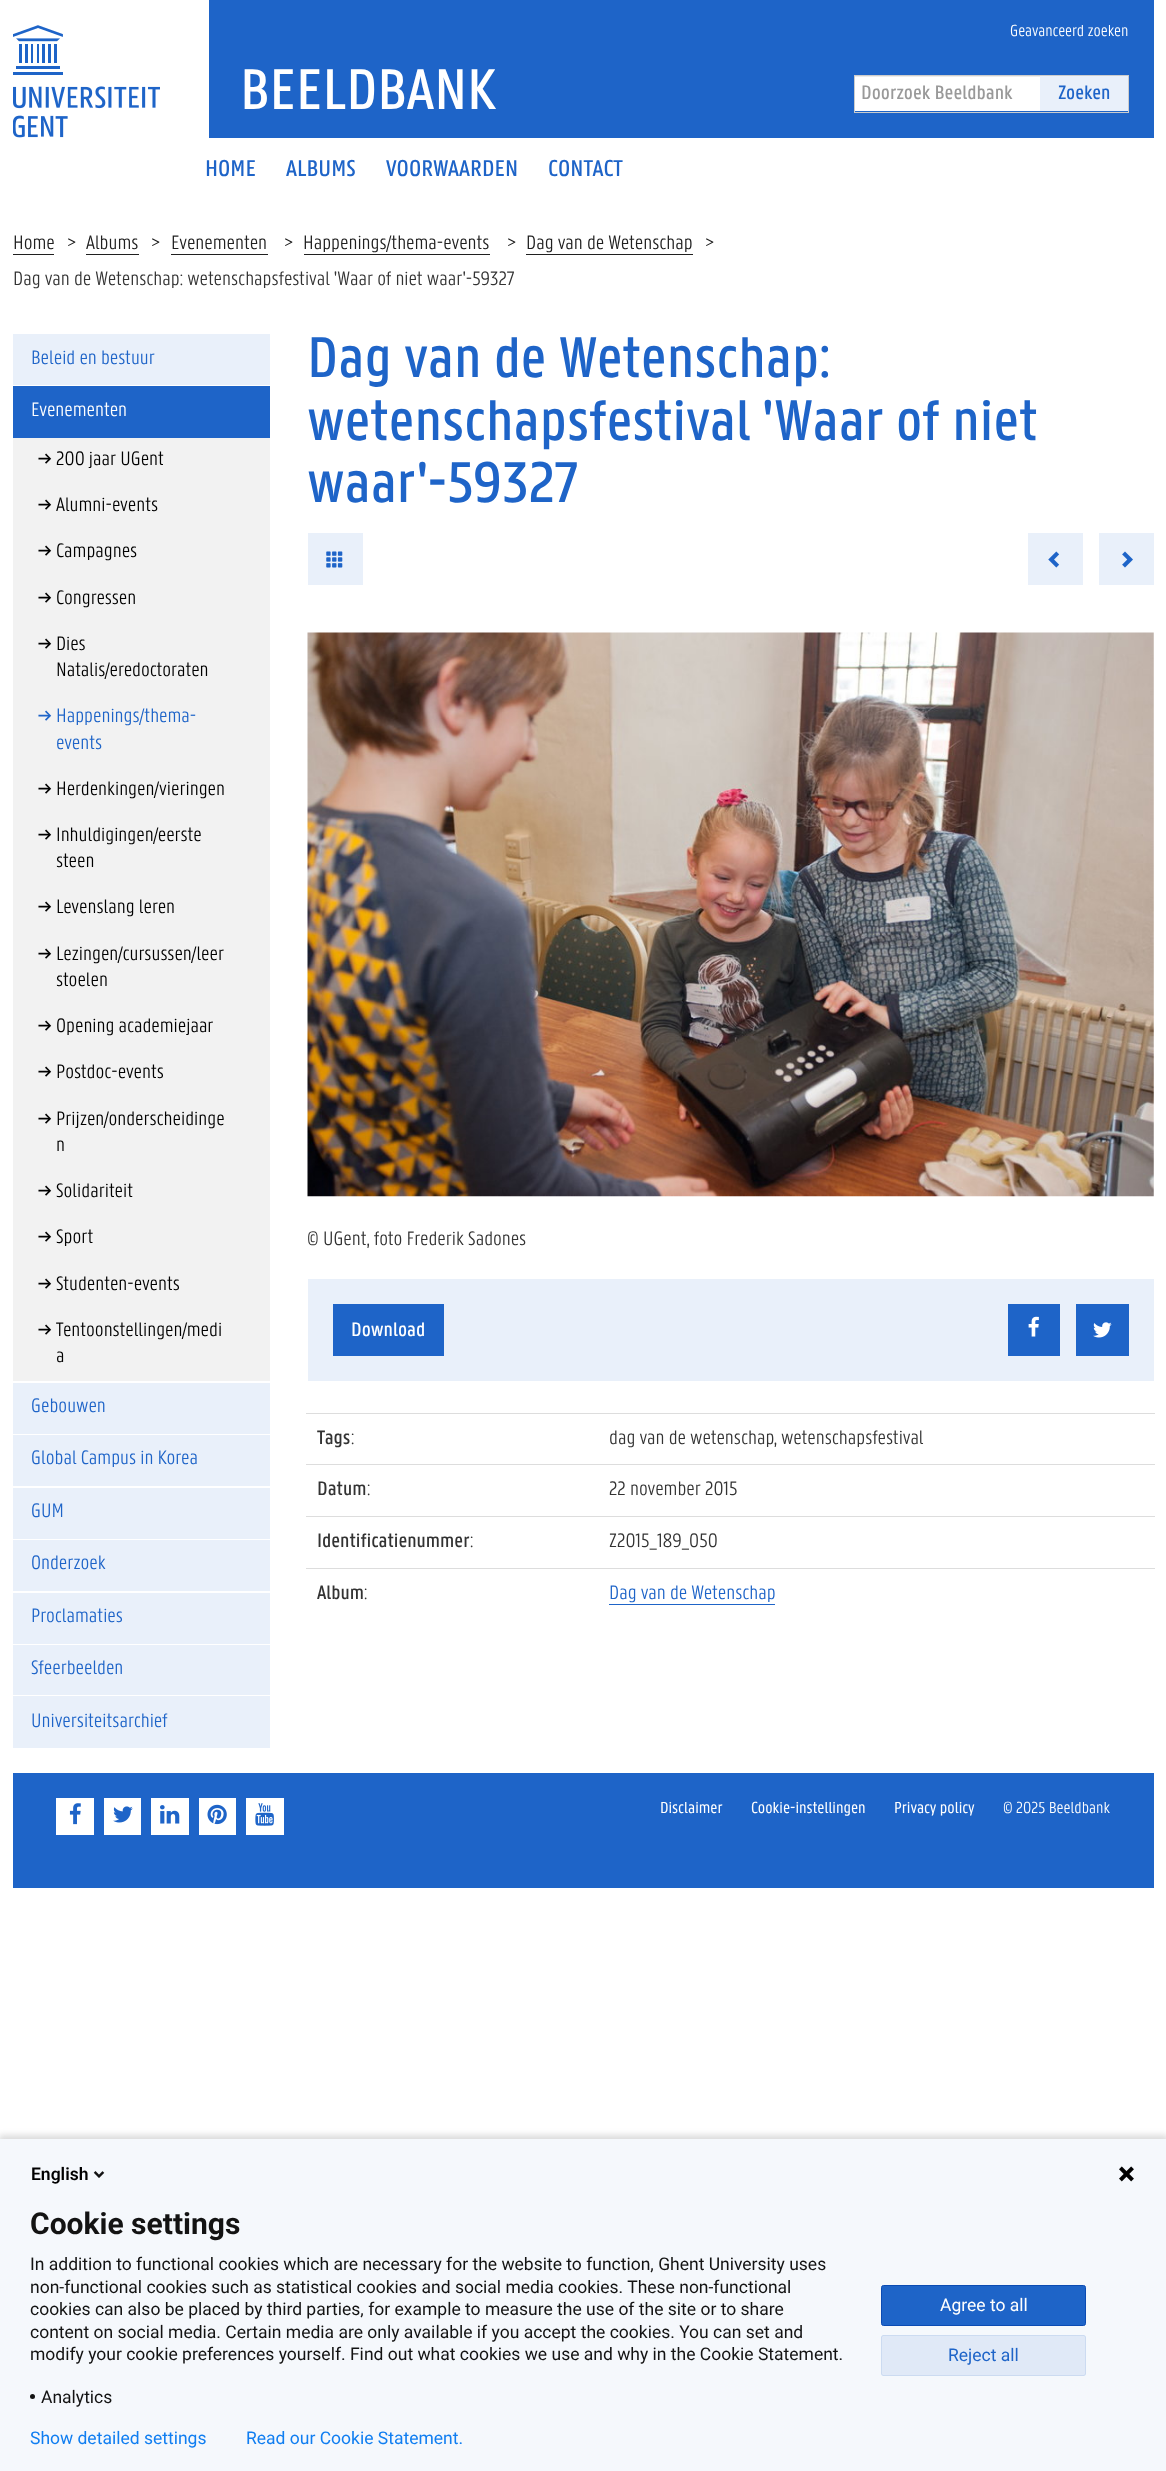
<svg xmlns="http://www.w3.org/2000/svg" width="1166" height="2471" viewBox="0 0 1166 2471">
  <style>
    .t1 { font: 500 62.5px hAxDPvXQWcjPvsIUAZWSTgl; fill: #fff; }
    .t2 { font: 300 17.5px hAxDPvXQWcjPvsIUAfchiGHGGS; fill: #fff; }
    .t3 { font: 500 21.25px hAxDPvXQWcjPvsIUAZWSTgl; fill: #999; }
    .t4 { font: 500 21.25px hAxDPvXQWcjPvsIUAZWSTgl; fill: #1e64c8; }
    .t5 { font: 500 25px hAxDPvXQWcjPvsIUAZWSTgl; fill: #1e64c8; }
    .t6 { font: 300 21.25px hAxDPvXQWcjPvsIUAfchiGHGGS; fill: #202020; }
    .t7 { font: 300 21.25px hAxDPvXQWcjPvsIUAfchiGHGGS; fill: #333; }
    .t8 { font: 300 21.25px hAxDPvXQWcjPvsIUAfchiGHGGS; fill: #1e64c8; }
    .t9 { font: 300 21.25px hAxDPvXQWcjPvsIUAfchiGHGGS; fill: #fff; }
    .t10 { font: 500 20px hAxDPvXQWcjPvsIUAZWSTgl; fill: #000; }
    .t11 { font: 300 21.25px hAxDPvXQWcjPvsIUAfchiGHGGS; fill: #000; }
    .t12 { font: 500 20px hAxDPvXQWcjPvsIUAZWSTgl; fill: #1e64c8; }
    .t13 { font: 500 62.5px hAxDPvXQWcjPvsIUAZWSTgl; fill: #1e64c8; }
    .t14 { font: 500 21.25px hAxDPvXQWcjPvsIUAZWSTgl; fill: #fff; }
    .t15 { font: 500 21.25px hAxDPvXQWcjPvsIUAZWSTgl; fill: #333; }
    .t16 { font: 17.5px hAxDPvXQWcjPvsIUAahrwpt; fill: #fff; }
    .t17 { font: 600 17.5px Roboto; fill: #000; }
    .t18 { font: bold 30px Roboto; fill: #131313; }
    .t19 { font: 17.5px Roboto; fill: #131313; }
    .t20 { font: 17.5px Roboto; fill: #fff; }
    .t21 { font: 17.5px Roboto; fill: #1e64c8; }
    .t22 { font: 17.5px Roboto; fill: #107ef1; }
  </style>
  <rect width="100%" height="100%" fill="#fff"/>
  <image x="13" y="25" width="147" height="113" href="images/1.png"/>
  <rect x="209" y="0" width="945" height="138" fill="#1e64c8"/>
  <text x="240" y="109" class="t1">BEELDBANK</text>
  <text x="1010" y="36" class="t2">Geavanceerd zoeken</text>
  <rect x="854.5" y="75.5" width="274" height="37" fill="none" stroke="#ccc"/>
  <rect x="855" y="77" width="185" height="34" fill="#fff"/>
  <rect x="855" y="76" width="185" height="1" fill="#ececec"/>
  <text x="861" y="99" class="t3">Doorzoek Beeldbank</text>
  <rect x="1040" y="76" width="88" height="35" fill="#e9f0fa"/>
  <text x="1058" y="99" class="t4">Zoeken</text>
  <text x="205" y="176" class="t5">HOME</text>
  <text x="286" y="176" class="t5">ALBUMS</text>
  <text x="386" y="176" class="t5">VOORWAARDEN</text>
  <text x="548" y="176" class="t5">CONTACT</text>
  <text x="13" y="249" class="t6">Home</text>
  <rect x="13" y="254" width="41" height="1" fill="#202020"/>
  <text x="67" y="249" class="t6">&gt;</text>
  <text x="86" y="249" class="t6">Albums</text>
  <rect x="86" y="254" width="53" height="1" fill="#202020"/>
  <text x="151" y="249" class="t6">&gt;</text>
  <text x="171" y="249" class="t6">Evenementen</text>
  <rect x="171" y="254" width="97" height="1" fill="#202020"/>
  <text x="284" y="249" class="t6">&gt;</text>
  <text x="303" y="249" class="t6">Happenings/thema-events</text>
  <rect x="304" y="254" width="186" height="1" fill="#202020"/>
  <text x="507" y="249" class="t6">&gt;</text>
  <text x="526" y="249" class="t6">Dag van de Wetenschap</text>
  <rect x="526" y="254" width="167" height="1" fill="#202020"/>
  <text x="705" y="249" class="t6">&gt;</text>
  <text x="13" y="285" class="t7">Dag van de Wetenschap: wetenschapsfestival 'Waar of niet waar'-59327</text>
  <rect x="13" y="334" width="257" height="51" fill="#e9f0fa"/>
  <text x="31" y="364" class="t8">Beleid en bestuur</text>
  <rect x="13" y="386" width="257" height="52" fill="#1e64c8"/>
  <text x="31" y="416" class="t9">Evenementen</text>
  <rect x="13" y="438" width="257" height="943" fill="#f2f2f2"/>
  <text x="38" y="465" class="t10">→</text>
  <text x="56" y="465" class="t11">200 jaar UGent</text>
  <text x="38" y="511" class="t10">→</text>
  <text x="56" y="511" class="t11">Alumni-events</text>
  <text x="38" y="557" class="t10">→</text>
  <text x="56" y="557" class="t11">Campagnes</text>
  <text x="38" y="604" class="t10">→</text>
  <text x="56" y="604" class="t11">Congressen</text>
  <text x="38" y="650" class="t10">→</text>
  <text x="56" y="650" class="t11">Dies</text>
  <text x="56" y="676" class="t11">Natalis/eredoctoraten</text>
  <text x="38" y="722" class="t12">→</text>
  <text x="56" y="722" class="t8">Happenings/thema-</text>
  <text x="56" y="749" class="t8">events</text>
  <text x="38" y="795" class="t10">→</text>
  <text x="56" y="795" class="t11">Herdenkingen/vieringen</text>
  <text x="38" y="841" class="t10">→</text>
  <text x="56" y="841" class="t11">Inhuldigingen/eerste</text>
  <text x="56" y="867" class="t11">steen</text>
  <text x="38" y="913" class="t10">→</text>
  <text x="56" y="913" class="t11">Levenslang leren</text>
  <text x="38" y="960" class="t10">→</text>
  <text x="56" y="960" class="t11">Lezingen/cursussen/leer</text>
  <text x="56" y="986" class="t11">stoelen</text>
  <text x="38" y="1032" class="t10">→</text>
  <text x="56" y="1032" class="t11">Opening academiejaar</text>
  <text x="38" y="1078" class="t10">→</text>
  <text x="56" y="1078" class="t11">Postdoc-events</text>
  <text x="38" y="1125" class="t10">→</text>
  <text x="56" y="1125" class="t11">Prijzen/onderscheidinge</text>
  <text x="56" y="1151" class="t11">n</text>
  <text x="38" y="1197" class="t10">→</text>
  <text x="56" y="1197" class="t11">Solidariteit</text>
  <text x="38" y="1243" class="t10">→</text>
  <text x="56" y="1243" class="t11">Sport</text>
  <text x="38" y="1290" class="t10">→</text>
  <text x="56" y="1290" class="t11">Studenten-events</text>
  <text x="38" y="1336" class="t10">→</text>
  <text x="56" y="1336" class="t11">Tentoonstellingen/medi</text>
  <text x="56" y="1362" class="t11">a</text>
  <rect x="13" y="1383" width="257" height="51" fill="#e9f0fa"/>
  <text x="31" y="1412" class="t8">Gebouwen</text>
  <rect x="13" y="1435" width="257" height="51" fill="#e9f0fa"/>
  <text x="31" y="1464" class="t8">Global Campus in Korea</text>
  <rect x="13" y="1488" width="257" height="51" fill="#e9f0fa"/>
  <text x="31" y="1517" class="t8">GUM</text>
  <rect x="13" y="1540" width="257" height="51" fill="#e9f0fa"/>
  <text x="31" y="1569" class="t8">Onderzoek</text>
  <rect x="13" y="1593" width="257" height="51" fill="#e9f0fa"/>
  <text x="31" y="1622" class="t8">Proclamaties</text>
  <rect x="13" y="1645" width="257" height="50" fill="#e9f0fa"/>
  <text x="31" y="1674" class="t8">Sfeerbeelden</text>
  <rect x="13" y="1696" width="257" height="52" fill="#e9f0fa"/>
  <text x="31" y="1727" class="t8">Universiteitsarchief</text>
  <text x="307" y="377" class="t13">Dag van de Wetenschap:</text>
  <text x="307" y="440" class="t13">wetenschapsfestival 'Waar of niet</text>
  <text x="307" y="502" class="t13">waar'-59327</text>
  <rect x="308" y="533" width="55" height="52" fill="#e9f0fa"/>
  <image x="326" y="551" width="17" height="17" href="images/2.png"/>
  <rect x="1028" y="533" width="55" height="52" fill="#e9f0fa"/>
  <image x="1048" y="551" width="12" height="17" href="images/3.png"/>
  <rect x="1099" y="533" width="55" height="52" fill="#e9f0fa"/>
  <image x="1122" y="551" width="11" height="17" href="images/4.png"/>
  <image x="307" y="632" width="847" height="565" href="images/5.png"/>
  <text x="307" y="1245" class="t7">© UGent, foto Frederik Sadones</text>
  <rect x="308" y="1279" width="846" height="102" fill="#e9f0fa"/>
  <rect x="333" y="1304" width="111" height="52" fill="#1e64c8"/>
  <text x="351" y="1336" class="t14">Download</text>
  <rect x="1008" y="1304" width="52" height="52" fill="#1e64c8"/>
  <image x="1028" y="1316" width="11" height="21" href="images/6.png"/>
  <rect x="1076" y="1304" width="53" height="52" fill="#1e64c8"/>
  <image x="1093" y="1322" width="19" height="16" href="images/7.png"/>
  <text x="317" y="1444" class="t15">Tags</text>
  <text x="351" y="1444" class="t7">:</text>
  <rect x="306" y="1413" width="849" height="1" fill="#ddd"/>
  <text x="609" y="1444" class="t7">dag van de wetenschap, wetenschapsfestival</text>
  <text x="317" y="1495" class="t15">Datum</text>
  <text x="367" y="1495" class="t7">:</text>
  <rect x="306" y="1464" width="849" height="1" fill="#ddd"/>
  <text x="609" y="1495" class="t7">22 november 2015</text>
  <text x="317" y="1547" class="t15">Identificatienummer</text>
  <text x="470" y="1547" class="t7">:</text>
  <rect x="306" y="1516" width="849" height="1" fill="#ddd"/>
  <text x="609" y="1547" class="t7">Z2015_189_050</text>
  <text x="317" y="1599" class="t15">Album</text>
  <text x="364" y="1599" class="t7">:</text>
  <rect x="306" y="1568" width="849" height="1" fill="#ddd"/>
  <text x="609" y="1599" class="t8">Dag van de Wetenschap</text>
  <rect x="609" y="1604" width="166" height="1" fill="#1e64c8"/>
  <rect x="13" y="1773" width="1141" height="115" fill="#1e64c8"/>
  <rect x="56" y="1798" width="38" height="37" fill="#fff"/>
  <image x="69" y="1803" width="12" height="22" href="images/8.png"/>
  <rect x="104" y="1798" width="37" height="37" fill="#fff"/>
  <image x="113" y="1806" width="20" height="17" href="images/9.png"/>
  <rect x="151" y="1798" width="38" height="37" fill="#fff"/>
  <image x="160" y="1805" width="20" height="19" href="images/10.png"/>
  <rect x="199" y="1798" width="37" height="37" fill="#fff"/>
  <image x="207" y="1804" width="20" height="21" href="images/11.png"/>
  <rect x="246" y="1798" width="38" height="37" fill="#fff"/>
  <image x="255" y="1803" width="19" height="23" href="images/12.png"/>
  <text x="660" y="1813" class="t16">Disclaimer</text>
  <text x="751" y="1813" class="t16">Cookie-instellingen</text>
  <text x="894" y="1813" class="t16">Privacy policy</text>
  <text x="1003" y="1813" class="t2">© 2025 Beeldbank</text>
  <rect x="-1" y="2135" width="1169" height="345" fill="#00000024" filter="blur(3px)"/>
  <rect x="0" y="2139" width="1166" height="332" fill="#f5f8fc"/>
  <text x="31" y="2180" class="t17">English</text>
  <image x="93" y="2171" width="12" height="7" href="images/13.png"/>
  <image x="1119" y="2166" width="15" height="16" href="images/14.png"/>
  <text x="30" y="2234" class="t18">Cookie settings</text>
  <text x="30" y="2270" class="t19">In addition to functional cookies which are necessary for the website to function, Ghent University uses</text>
  <text x="30" y="2293" class="t19">non-functional cookies such as statistical cookies and social media cookies. These non-functional</text>
  <text x="30" y="2315" class="t19">cookies can also be placed by third parties, for example to measure the use of the site or to share</text>
  <text x="30" y="2338" class="t19">content on social media. Certain media are only available if you accept the cookies. You can set and</text>
  <text x="30" y="2360" class="t19">modify your cookie preferences yourself. Find out what cookies we use and why in the Cookie Statement.</text>
  <circle cx="32.5" cy="2396.5" r="2.5" fill="#131313"/>
  <text x="41" y="2403" class="t19">Analytics</text>
  <rect x="881.5" y="2285.5" width="204" height="40" rx="2" fill="#1e64c8" stroke="#0b4bb3"/>
  <text x="940" y="2311" class="t20">Agree to all</text>
  <rect x="881" y="2335" width="205" height="41" rx="2.5" fill="#e0e9f7"/>
  <rect x="881.5" y="2335.5" width="204" height="40" rx="2" fill="none" stroke="#1e64c81a"/>
  <text x="948" y="2361" class="t21">Reject all</text>
  <text x="30" y="2444" class="t22">Show detailed settings</text>
  <text x="246" y="2444" class="t22">Read our Cookie Statement.</text>
</svg>
